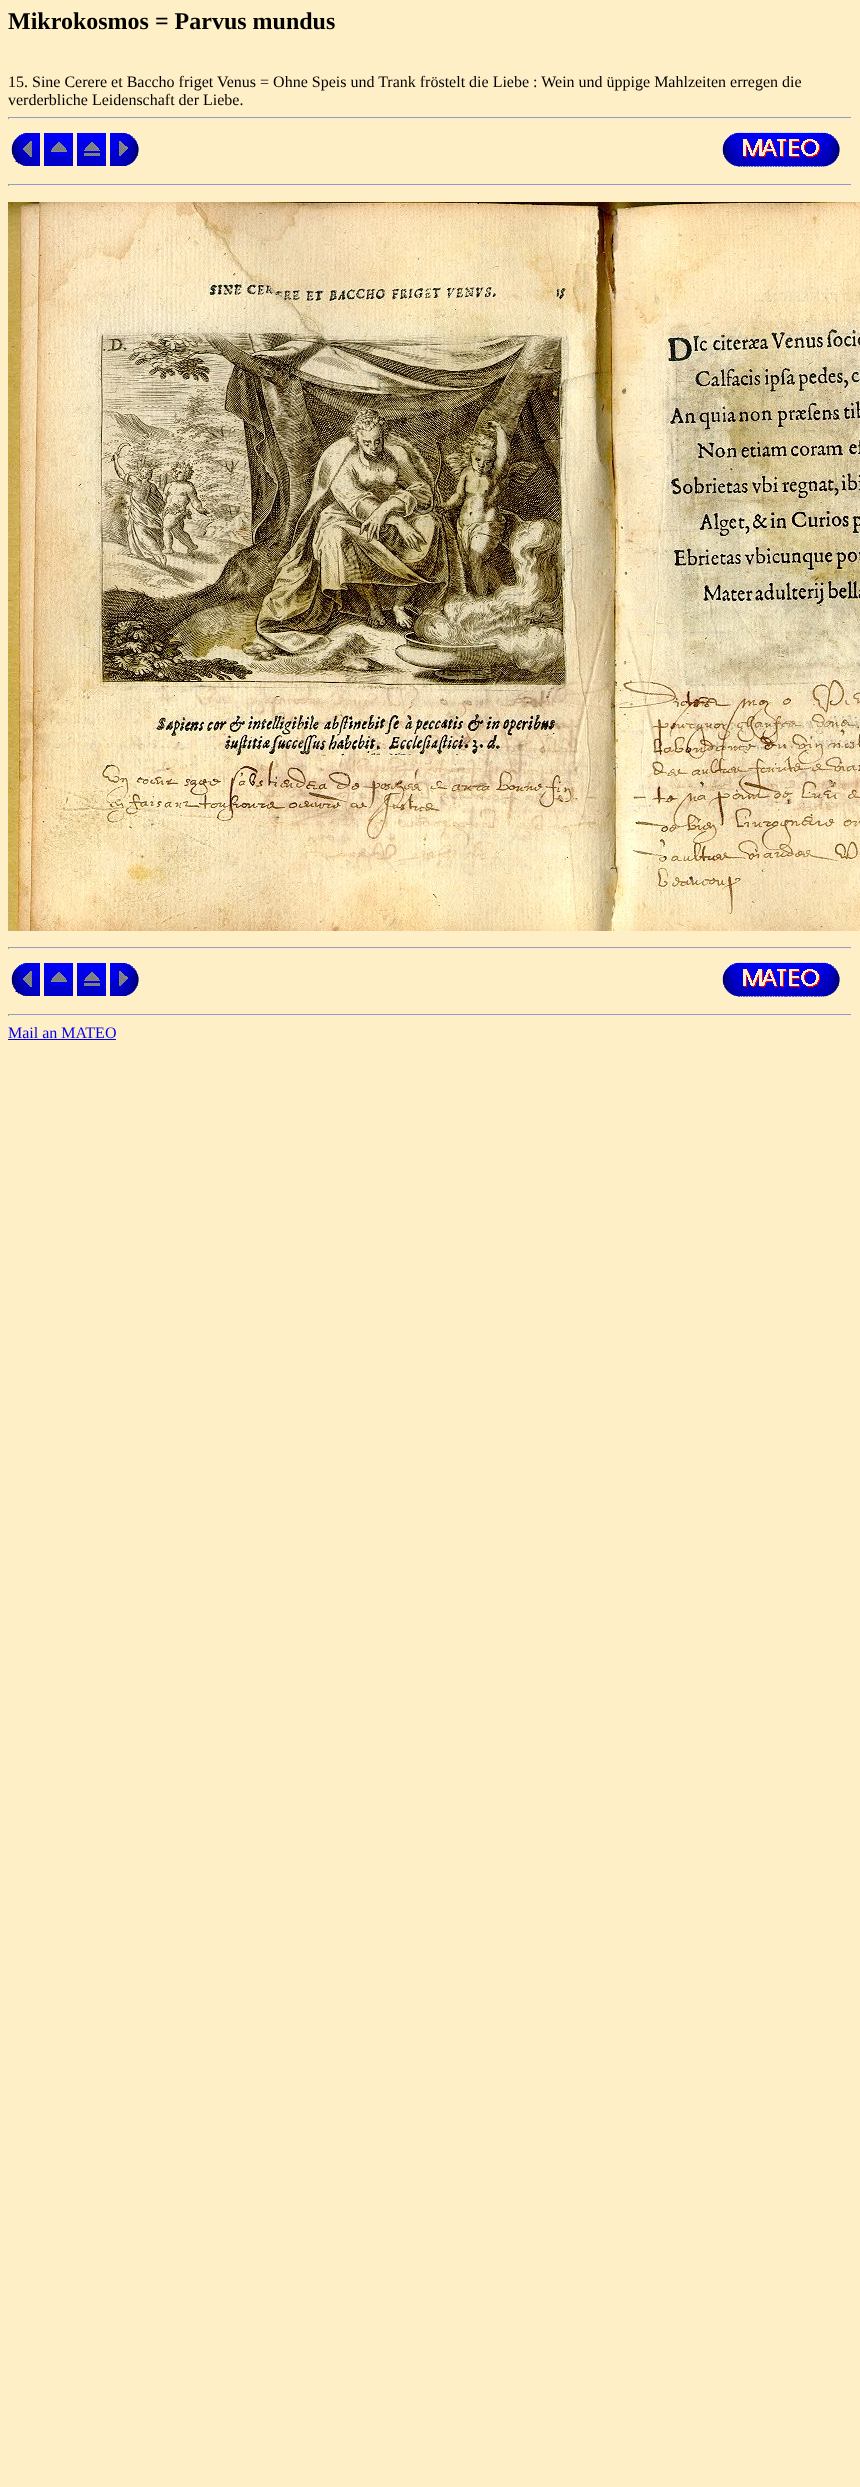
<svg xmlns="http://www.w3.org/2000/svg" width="860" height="2487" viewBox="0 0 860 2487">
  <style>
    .t1 { font: bold 24px Liberation Serif; fill: #000; }
    .t2 { font: 16px Liberation Serif; fill: #000; }
    .t3 { font: 16px Liberation Serif; fill: #00e; }
  </style>
  <rect width="100%" height="100%" fill="#ffefc6"/>
  <text x="8" y="29" class="t1">Mikrokosmos = Parvus mundus</text>
  <text x="8" y="87" class="t2">15. Sine Cerere et Baccho friget Venus = Ohne Speis und Trank fröstelt die Liebe : Wein und üppige Mahlzeiten erregen die</text>
  <text x="8" y="105" class="t2">verderbliche Leidenschaft der Liebe.</text>
  <rect x="8" y="117" width="844" height="1" fill="#9f9f9f"/>
  <rect x="851" y="117" width="1" height="2" fill="#eee"/>
  <rect x="8" y="118" width="844" height="1" fill="#eee"/>
  <rect x="8" y="117" width="1" height="2" fill="#9f9f9f"/>
  <image x="11" y="133" width="29" height="33" href="images/1.png"/>
  <image x="44" y="133" width="29" height="33" href="images/2.png"/>
  <image x="77" y="133" width="29" height="33" href="images/3.png"/>
  <image x="110" y="133" width="29" height="33" href="images/4.png"/>
  <image x="722" y="132" width="118" height="35" href="images/5.png"/>
  <rect x="8" y="184" width="844" height="1" fill="#9f9f9f"/>
  <rect x="851" y="184" width="1" height="2" fill="#eee"/>
  <rect x="8" y="185" width="844" height="1" fill="#eee"/>
  <rect x="8" y="184" width="1" height="2" fill="#9f9f9f"/>
  <image x="8" y="202" width="852" height="729" href="images/6.png"/>
  <rect x="8" y="947" width="844" height="1" fill="#9f9f9f"/>
  <rect x="851" y="947" width="1" height="2" fill="#eee"/>
  <rect x="8" y="948" width="844" height="1" fill="#eee"/>
  <rect x="8" y="947" width="1" height="2" fill="#9f9f9f"/>
  <image x="11" y="963" width="29" height="33" href="images/1.png"/>
  <image x="44" y="963" width="29" height="33" href="images/2.png"/>
  <image x="77" y="963" width="29" height="33" href="images/3.png"/>
  <image x="110" y="963" width="29" height="33" href="images/4.png"/>
  <image x="722" y="962" width="118" height="35" href="images/5.png"/>
  <rect x="8" y="1014" width="844" height="1" fill="#9f9f9f"/>
  <rect x="851" y="1014" width="1" height="2" fill="#eee"/>
  <rect x="8" y="1015" width="844" height="1" fill="#eee"/>
  <rect x="8" y="1014" width="1" height="2" fill="#9f9f9f"/>
  <text x="8" y="1038" class="t3">Mail an MATEO</text>
  <rect x="8" y="1039" width="108" height="1" fill="#00e"/>
</svg>
